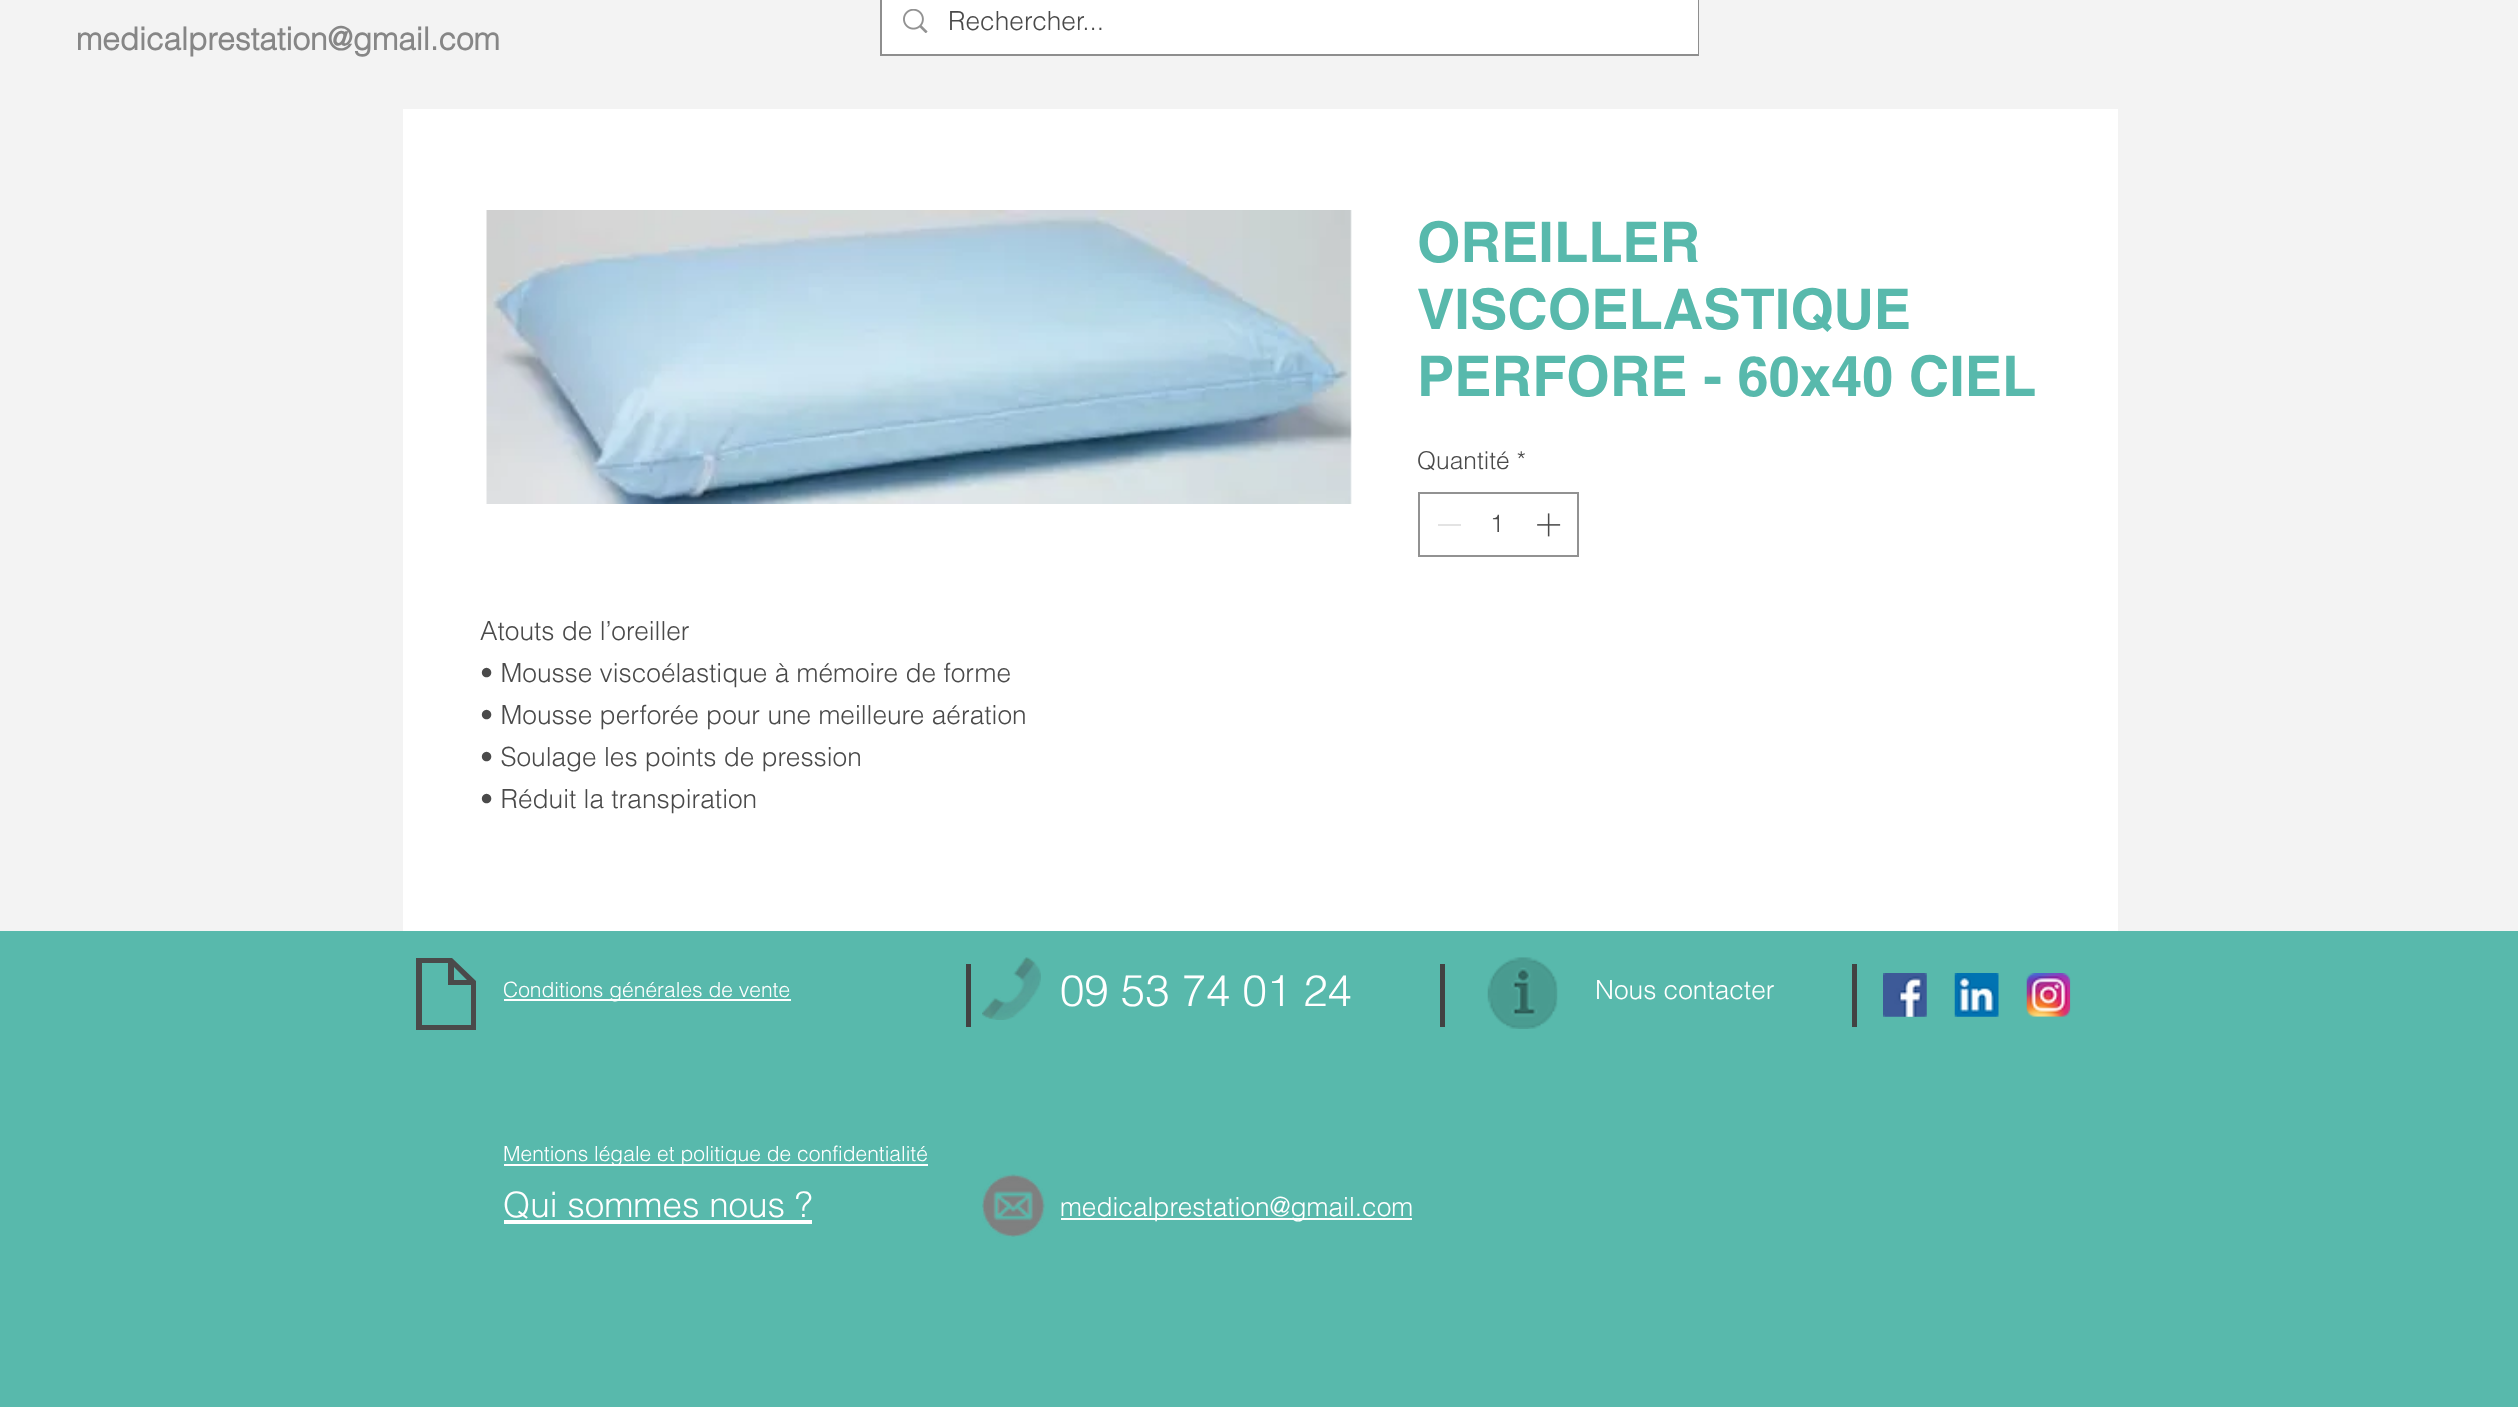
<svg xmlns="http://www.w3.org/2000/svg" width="2518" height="1407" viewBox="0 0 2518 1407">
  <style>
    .t1 { font: 300 26.25px helvetica; fill: #4a4a4a; }
    .t2 { font: bold 31.5px helvetica; fill: #868686; }
    .t3 { font: bold 56px 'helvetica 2'; fill: #58b9ac; }
    .t4 { font: 300 24.5px helvetica; fill: #4a4a4a; }
    .t5 { font: 300 21px helvetica; fill: #fff; }
    .t6 { font: 300 43.75px helvetica; fill: #fff; }
    .t7 { font: 300 26.25px helvetica; fill: #fff; }
    .t8 { font: 300 35px helvetica; fill: #fff; }
  </style>
  <rect width="100%" height="100%" fill="#f3f3f3"/>
  <rect x="881" y="-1" width="817" height="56" fill="none" stroke="#8e8e8e" stroke-width="2"/>
  <rect x="882" y="0" width="816" height="54" fill="#fff"/>
  <image x="903" y="9" width="25" height="24" href="images/1.png"/>
  <text x="948" y="30" class="t1">Rechercher...</text>
  <text x="76" y="50" class="t2">medicalprestation@gmail.com</text>
  <rect x="403" y="109" width="1715" height="822" fill="#fff"/>
  <text x="1417" y="262" class="t3">OREILLER</text>
  <text x="1417" y="329" class="t3">VISCOELASTIQUE</text>
  <text x="1417" y="396" class="t3">PERFORE - 60x40 CIEL</text>
  <text x="1417" y="469" class="t4">Quantité *</text>
  <rect x="1419" y="493" width="159" height="63" fill="none" stroke="#929292" stroke-width="2"/>
  <rect x="1438" y="524" width="23" height="2" fill="#e3e3e3"/>
  <text x="1490" y="532" class="t4">1</text>
  <image x="1537" y="513" width="24" height="24" href="images/2.png"/>
  <image x="486" y="210" width="866" height="294" href="images/3.png"/>
  <text x="480" y="640" class="t1">Atouts de l’oreiller</text>
  <text x="480" y="682" class="t1">• Mousse viscoélastique à mémoire de forme</text>
  <text x="480" y="724" class="t1">• Mousse perforée pour une meilleure aération</text>
  <text x="480" y="766" class="t1">• Soulage les points de pression</text>
  <text x="480" y="808" class="t1">• Réduit la transpiration</text>
  <rect x="0" y="931" width="2518" height="476" fill="#58b9ac"/>
  <path d="M452 958H416V1030H476V981ZM454 967L467 980H454ZM422 1025V963H448V985H471V1025Z" fill="#4a4a4a"/>
  <rect x="504" y="999" width="287" height="2" fill="#fff"/>
  <text x="503" y="997" class="t5">Conditions générales de vente</text>
  <rect x="966" y="964" width="5" height="63" fill="#424242"/>
  <image x="982" y="957" width="59" height="63" href="images/4.png"/>
  <text x="1060" y="1006" class="t6">09 53 74 01 24</text>
  <rect x="1440" y="964" width="5" height="63" fill="#424242"/>
  <image x="1487" y="957" width="71" height="72" href="images/5.png"/>
  <text x="1595" y="999" class="t7">Nous contacter</text>
  <rect x="1852" y="964" width="5" height="63" fill="#424242"/>
  <image x="1883" y="973" width="44" height="44" href="images/6.png"/>
  <image x="1954" y="973" width="45" height="44" href="images/7.png"/>
  <image x="2026" y="973" width="45" height="44" href="images/8.png"/>
  <rect x="504" y="1164" width="424" height="2" fill="#fff"/>
  <text x="503" y="1161" class="t5">Mentions légale et politique de confidentialité</text>
  <text x="503" y="1217" class="t8">Qui sommes nous ?</text>
  <rect x="504" y="1220" width="308" height="4" fill="#fff"/>
  <image x="982" y="1174" width="63" height="63" href="images/9.png"/>
  <rect x="1061" y="1218" width="351" height="2" fill="#fcfefd"/>
  <text x="1060" y="1216" class="t7">medicalprestation@gmail.com</text>
</svg>
